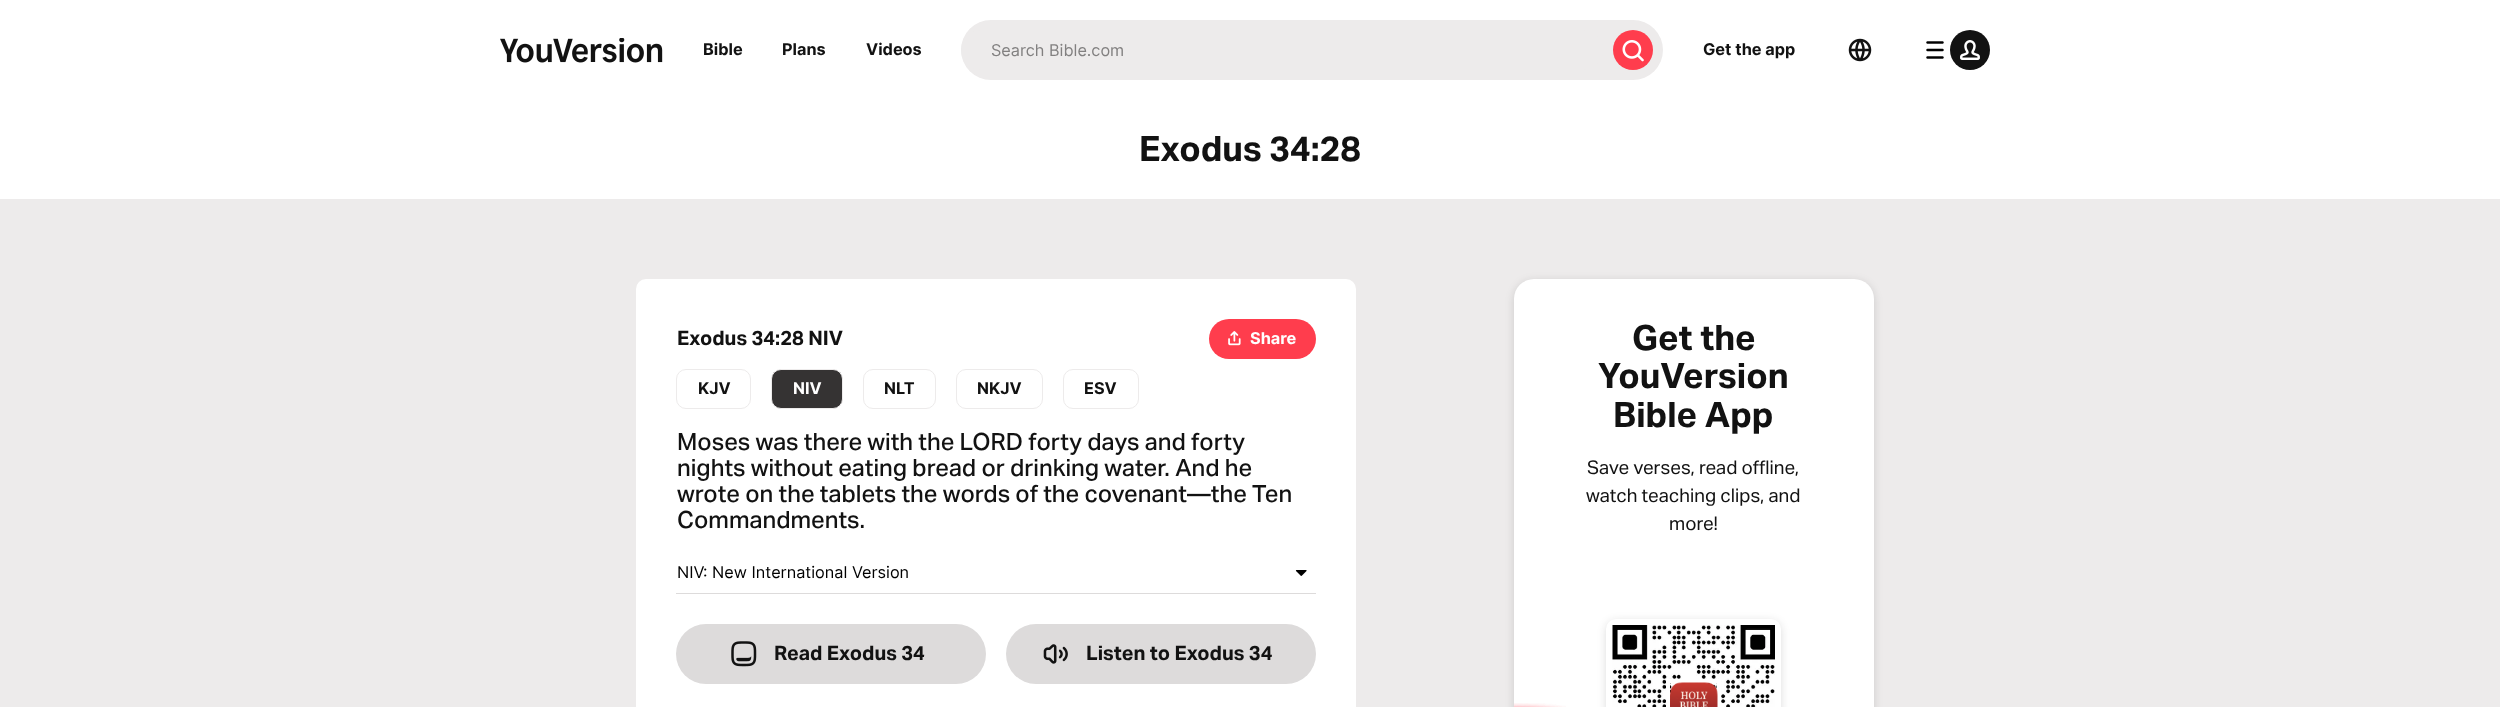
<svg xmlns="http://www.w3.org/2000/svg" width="2500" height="707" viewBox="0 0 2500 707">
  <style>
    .t1 { font: bold 16.25px Inter; fill: #121212; }
    .t2 { font: 16.25px Inter; fill: #828080; }
    .t3 { font: bold 35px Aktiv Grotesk; fill: #121212; }
    .t4 { font: bold 20px Aktiv Grotesk; fill: #121212; }
    .t5 { font: bold 16.25px Inter; fill: #fff; }
    .t6 { font: 500 23.75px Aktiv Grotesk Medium; fill: #121212; }
    .t7 { font: 16.25px Inter; fill: #000; }
    .t8 { font: 18.75px Aktiv Grotesk; fill: #121212; }
  </style>
  <rect width="100%" height="100%" fill="#fff"/>
  <image x="500" y="38" width="163" height="25" href="images/1.png"/>
  <text x="703" y="55" class="t1">Bible</text>
  <text x="782" y="55" class="t1">Plans</text>
  <text x="866" y="55" class="t1">Videos</text>
  <rect x="961" y="20" width="702" height="60" rx="30" fill="#edebeb"/>
  <rect x="961" y="30" width="642" height="40" rx="20" fill="#edebeb"/>
  <text x="991" y="56" class="t2">Search Bible.com</text>
  <circle cx="1633" cy="50" r="20" fill="#ff3d4d"/>
  <image x="1622" y="40" width="22" height="22" href="images/2.png"/>
  <text x="1703" y="55" class="t1">Get the app</text>
  <image x="1848" y="38" width="24" height="24" href="images/3.png"/>
  <image x="1926" y="41" width="18" height="18" href="images/4.png"/>
  <circle cx="1970" cy="50" r="20" fill="#121212"/>
  <image x="1960" y="40" width="20" height="20" href="images/5.png"/>
  <text x="1139" y="161" class="t3">Exodus 34:28</text>
  <rect x="0" y="199" width="2500" height="508" fill="#edebeb"/>
  <rect x="636" y="279" width="720" height="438" rx="10" fill="#fff"/>
  <text x="677" y="345" class="t4">Exodus 34:28 NIV</text>
  <rect x="1209" y="319" width="107" height="40" rx="20" fill="#ff3d4d"/>
  <image x="1228" y="331" width="13" height="15" href="images/6.png"/>
  <text x="1250" y="344" class="t5">Share</text>
  <rect x="676.5" y="369.5" width="74" height="39" rx="9.5" fill="none" stroke="#edebeb"/>
  <text x="698" y="394" class="t1">KJV</text>
  <rect x="771.5" y="369.5" width="71" height="39" rx="9.5" fill="#353333" stroke="#edebeb"/>
  <text x="793" y="394" class="t5">NIV</text>
  <rect x="863.5" y="369.5" width="72" height="39" rx="9.5" fill="none" stroke="#edebeb"/>
  <text x="884" y="394" class="t1">NLT</text>
  <rect x="956.5" y="369.5" width="86" height="39" rx="9.5" fill="none" stroke="#edebeb"/>
  <text x="977" y="394" class="t1">NKJV</text>
  <rect x="1063.5" y="369.5" width="75" height="39" rx="9.5" fill="none" stroke="#edebeb"/>
  <text x="1084" y="394" class="t1">ESV</text>
  <text x="677" y="450" class="t6">Moses was there with the LORD forty days and forty</text>
  <text x="677" y="476" class="t6">nights without eating bread or drinking water. And he</text>
  <text x="677" y="502" class="t6">wrote on the tablets the words of the covenant—the Ten</text>
  <text x="677" y="528" class="t6">Commandments.</text>
  <rect x="676" y="593" width="640" height="1" fill="#dddbdb"/>
  <text x="677" y="578" class="t7">NIV</text>
  <text x="703" y="578" class="t7">: New International Version</text>
  <image x="1295" y="570" width="12" height="6" href="images/7.png"/>
  <rect x="676" y="624" width="310" height="60" rx="30" fill="#dddbdb"/>
  <image x="731" y="641" width="26" height="26" href="images/8.png"/>
  <text x="774" y="660" class="t4">Read Exodus 34</text>
  <rect x="1006" y="624" width="310" height="60" rx="30" fill="#dddbdb"/>
  <image x="1043" y="644" width="25" height="20" href="images/9.png"/>
  <text x="1086" y="660" class="t4">Listen to Exodus 34</text>
  <rect x="1514" y="281" width="360" height="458" rx="20" fill="#12121226" filter="blur(4px)"/>
  <rect x="1514" y="279" width="360" height="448" rx="20" fill="#fff"/>
  <text x="1632" y="350" class="t3">Get the</text>
  <text x="1598" y="388" class="t3">YouVersion</text>
  <text x="1613" y="427" class="t3">Bible App</text>
  <text x="1587" y="474" class="t8">Save verses, read offline,</text>
  <text x="1586" y="502" class="t8">watch teaching clips, and</text>
  <text x="1669" y="530" class="t8">more!</text>
  <image x="1514" y="703" width="52" height="4" href="images/10.png"/>
  <rect x="1606" y="621" width="175" height="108" rx="10" fill="#12121226" filter="blur(4px)"/>
  <rect x="1606" y="619" width="175" height="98" rx="10" fill="#fff"/>
  <image x="1612" y="625" width="163" height="82" href="images/11.png"/>
  <rect x="1668" y="681" width="51" height="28" fill="none" stroke="#fff" stroke-width="4"/>
  <image x="1670" y="682" width="48" height="25" href="images/12.png"/>
</svg>
